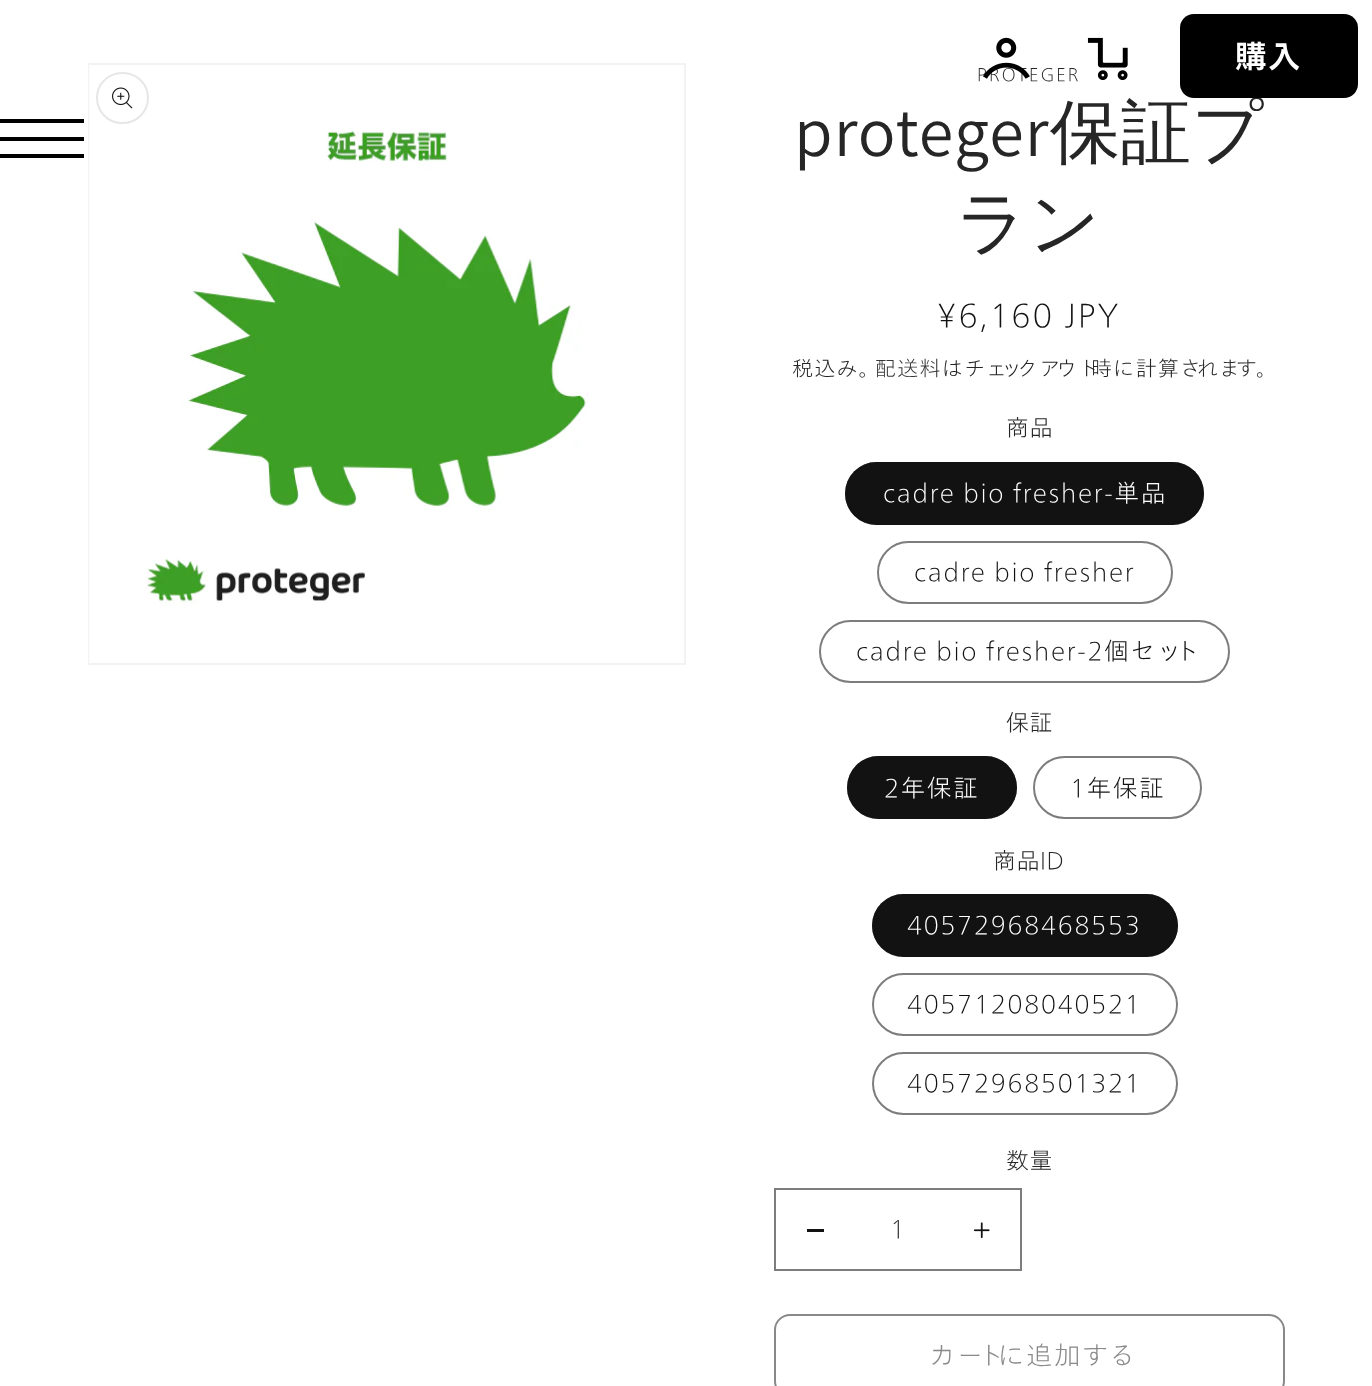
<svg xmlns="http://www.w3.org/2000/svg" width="1372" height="1386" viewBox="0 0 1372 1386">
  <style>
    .t1 { font: 100 17.5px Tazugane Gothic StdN; letter-spacing: 2.25px; fill: #262626; }
    .t2 { font: 500 70px WenQuanYi Zen Hei; letter-spacing: 1px; fill: #262626; }
    .t3 { font: bold 31.5px Tazugane Gothic StdN; letter-spacing: 2px; fill: #fff; }
    .t4 { font: 70px Assistant; letter-spacing: 1px; fill: #262626; }
    .t5 { font: 100 31.5px Tazugane Gothic StdN; letter-spacing: 2.25px; fill: #121212; }
    .t6 { font: 100 21px Tazugane Gothic StdN; letter-spacing: 1.25px; fill: #262626; }
    .t7 { font: 100 21px Tazugane Gothic StdN; letter-spacing: 1.25px; fill: #363636; }
    .t8 { font: 100 23px Tazugane Gothic StdN; letter-spacing: 0.5px; fill: #262626; }
    .t9 { font: 100 24.5px Tazugane Gothic StdN; letter-spacing: 1.75px; fill: #fff; }
    .t10 { font: 100 24.5px Tazugane Gothic StdN; letter-spacing: 1.75px; fill: #121212; }
    .t11 { font: 100 24.5px Tazugane Gothic StdN; fill: #363636; }
    .t12 { font: 100 26.25px Tazugane Gothic StdN; letter-spacing: 1.75px; fill: #898989; }
  </style>
  <rect width="100%" height="100%" fill="#fff"/>
  <text x="977" y="81" class="t1">PROTEGER</text>
  <image x="983" y="37" width="47" height="42" href="images/1.png"/>
  <image x="1087" y="37" width="41" height="44" href="images/2.png"/>
  <text x="1050" y="156" class="t2">保証プ</text>
  <rect x="1180" y="14" width="178" height="84" rx="14" fill="#000"/>
  <text x="1235" y="68" class="t3">購入</text>
  <rect x="0" y="119" width="84" height="4" fill="#000"/>
  <rect x="0" y="137" width="84" height="4" fill="#000"/>
  <rect x="0" y="154" width="84" height="4" fill="#000"/>
  <rect x="89" y="64" width="596" height="600" fill="none" stroke="#f3f3f3" stroke-width="2"/>
  <image x="89" y="65" width="500" height="598" href="images/3.png"/>
  <rect x="97" y="73" width="51" height="50" rx="25" fill="none" stroke="#e7e7e7" stroke-width="2"/>
  <image x="112" y="87" width="21" height="22" href="images/4.png"/>
  <text x="794" y="156" class="t4">proteger</text>
  <text x="956" y="247" class="t2">ラン</text>
  <text x="937" y="327" class="t5">¥6,160 JPY</text>
  <text x="792" y="376" class="t6">税込み。</text>
  <text x="875" y="376" class="t7">配送料</text>
  <text x="942" y="376" class="t6">はチェ</text>
  <text x="1001" y="376" class="t6">ッ</text>
  <text x="1017" y="376" class="t6">クア</text>
  <text x="1056" y="376" class="t6">ウト</text>
  <text x="1091" y="376" class="t6">時に計算さ</text>
  <text x="1197" y="376" class="t6">れま</text>
  <text x="1236" y="376" class="t6">す。</text>
  <text x="1006" y="436" class="t8">商品</text>
  <rect x="845" y="462" width="359" height="63" rx="31.5" fill="#121212"/>
  <rect x="846" y="463" width="357" height="61" rx="30.5" fill="none" stroke="#1212128c" stroke-width="2"/>
  <text x="883" y="502" class="t9">cadre bio fresher-単品</text>
  <rect x="878" y="542" width="294" height="61" rx="30.5" fill="none" stroke="#7d7d7d" stroke-width="2"/>
  <text x="914" y="581" class="t10">cadre bio fresher</text>
  <rect x="820" y="621" width="409" height="61" rx="30.5" fill="none" stroke="#7d7d7d" stroke-width="2"/>
  <text x="856" y="660" class="t10">cadre bio fresher-2個セッ</text>
  <text x="1175" y="660" class="t10">ト</text>
  <text x="1006" y="731" class="t8">保証</text>
  <rect x="847" y="756" width="170" height="63" rx="31.5" fill="#121212"/>
  <rect x="848" y="757" width="168" height="61" rx="30.5" fill="none" stroke="#1212128c" stroke-width="2"/>
  <text x="884" y="797" class="t9">2年保証</text>
  <rect x="1034" y="757" width="167" height="61" rx="30.5" fill="none" stroke="#7d7d7d" stroke-width="2"/>
  <text x="1070" y="797" class="t10">1年保証</text>
  <text x="993" y="869" class="t8">商品ID</text>
  <rect x="872" y="894" width="306" height="63" rx="31.5" fill="#121212"/>
  <rect x="873" y="895" width="304" height="61" rx="30.5" fill="none" stroke="#1212128c" stroke-width="2"/>
  <text x="907" y="934" class="t9">40572968468553</text>
  <rect x="873" y="974" width="304" height="61" rx="30.5" fill="none" stroke="#7d7d7d" stroke-width="2"/>
  <text x="907" y="1013" class="t10">40571208040521</text>
  <rect x="873" y="1053" width="304" height="61" rx="30.5" fill="none" stroke="#7d7d7d" stroke-width="2"/>
  <text x="907" y="1092" class="t10">40572968501321</text>
  <text x="1006" y="1169" class="t8">数量</text>
  <rect x="807" y="1229" width="17" height="3" fill="#121212"/>
  <image x="973" y="1222" width="17" height="17" href="images/5.png"/>
  <rect x="775" y="1189" width="246" height="81" fill="none" stroke="#7d7d7d" stroke-width="2"/>
  <text x="890" y="1238" class="t11">1</text>
  <rect x="775" y="1315" width="509" height="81" rx="15" fill="none" stroke="#898989" stroke-width="2"/>
  <text x="929" y="1365" class="t12">カー</text>
  <text x="978" y="1365" class="t12">ト</text>
  <text x="998" y="1365" class="t12">に追加する</text>
</svg>
